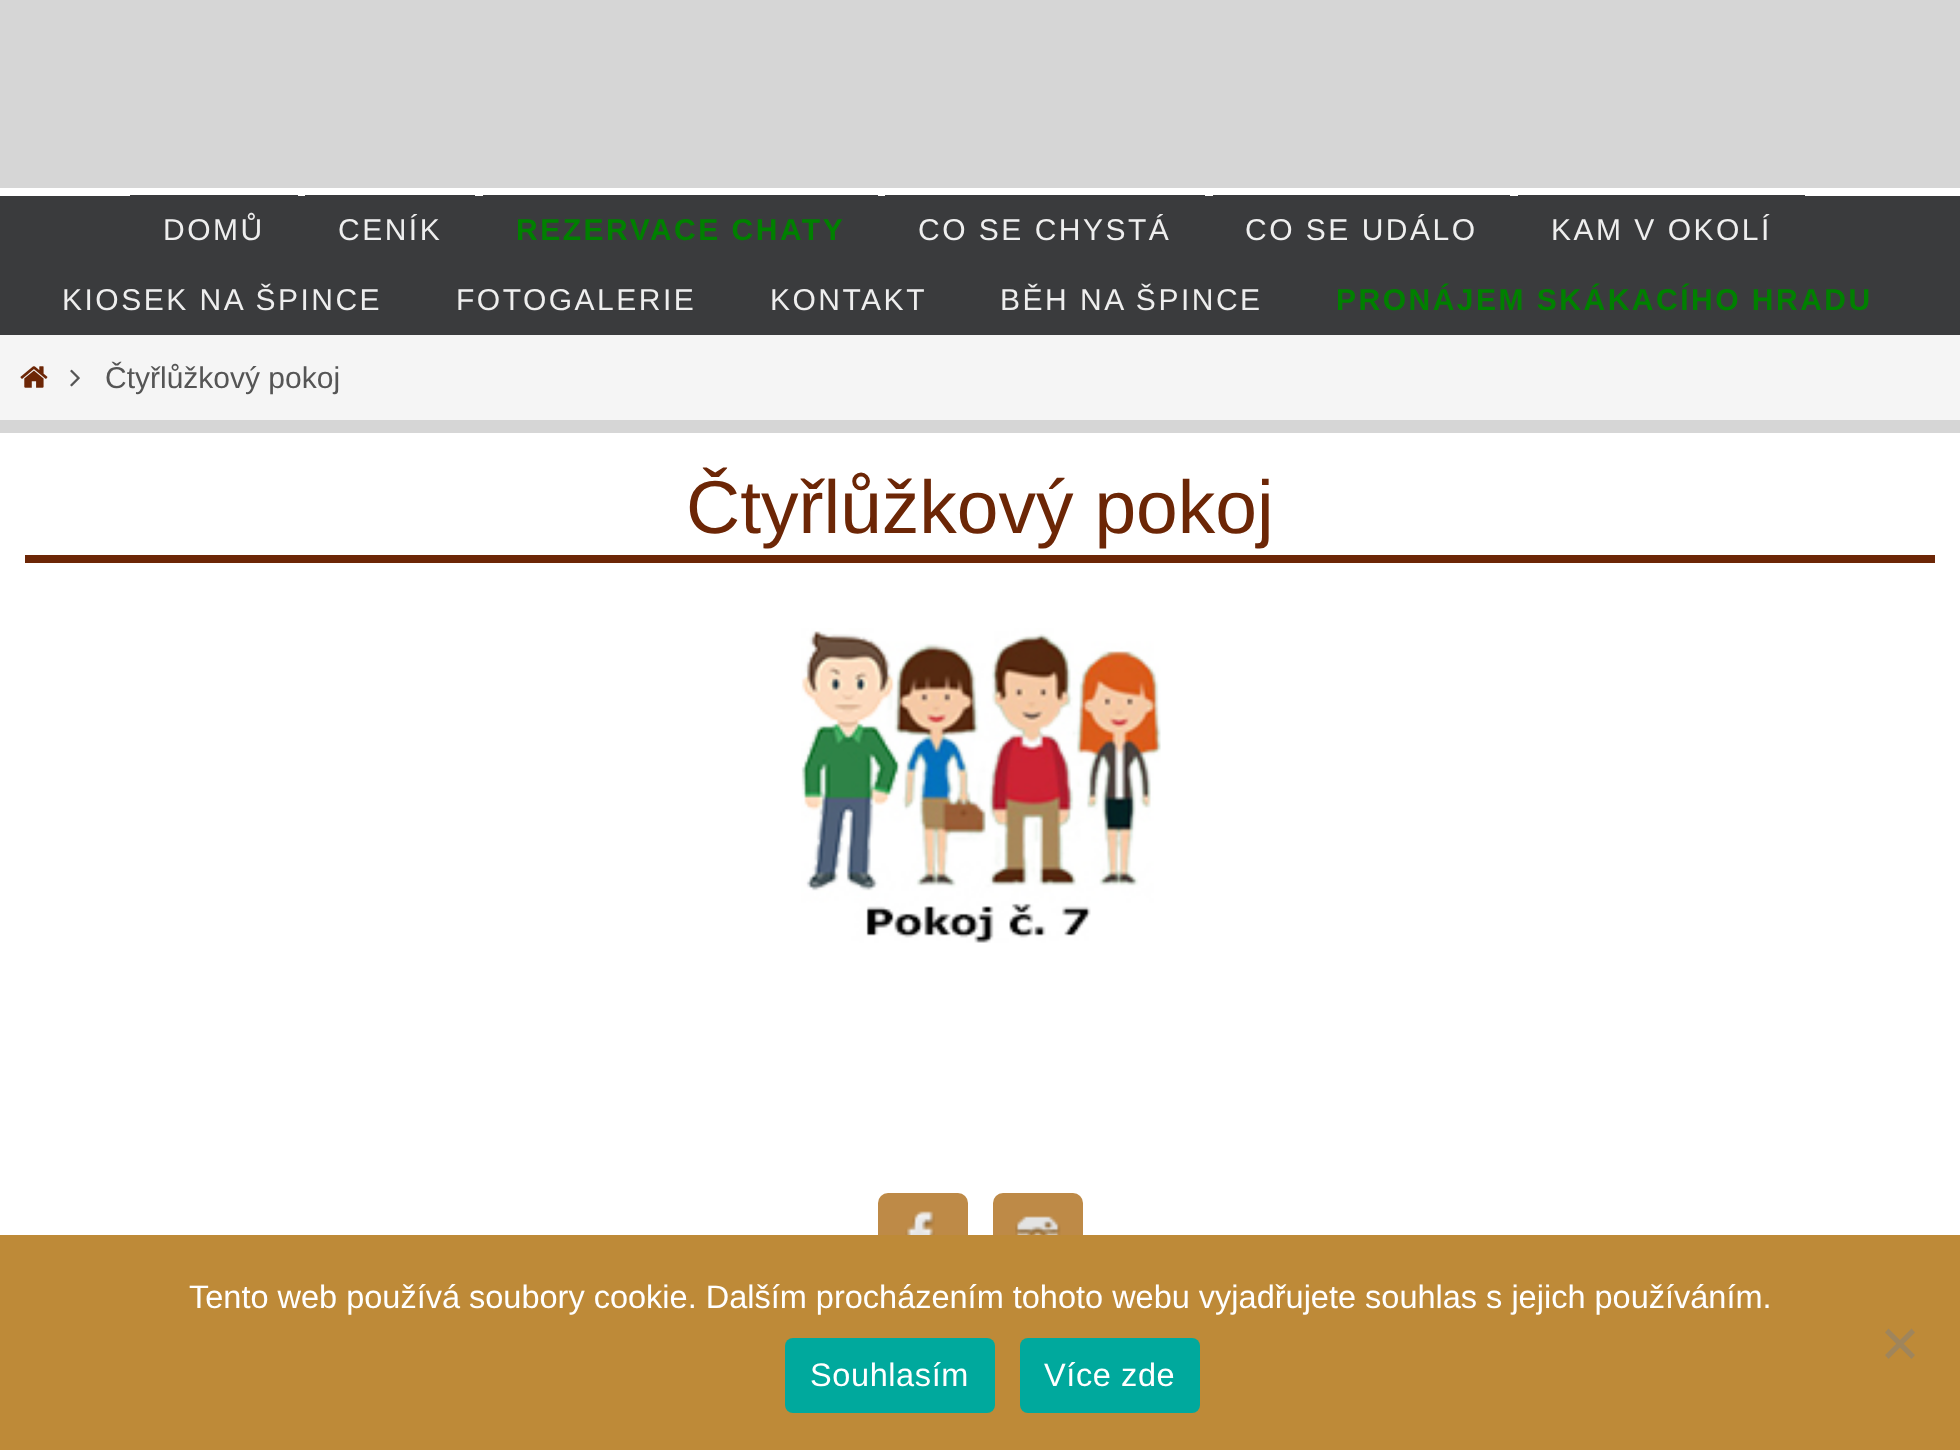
<svg xmlns="http://www.w3.org/2000/svg" width="1960" height="1450" viewBox="0 0 1960 1450">
  <style>
    .t1 { font: 30px Liberation Sans; letter-spacing: 2.5px; fill: #eee; }
    .t2 { font: bold 30px Liberation Sans; letter-spacing: 2.5px; fill: #008000; }
    .t3 { font: 30px Liberation Sans; fill: #555; }
    .t4 { font: 75px Liberation Sans; fill: #6c2606; }
    .t5 { font: 32.5px Liberation Sans; fill: #fff; }
    .t6 { font: 32.5px Liberation Sans; letter-spacing: 0.6px; fill: #fff; }
  </style>
  <rect width="100%" height="100%" fill="#d6d6d6"/>
  <rect x="0" y="188" width="1960" height="8" fill="#fff"/>
  <rect x="0" y="196" width="1960" height="139" fill="#3a3b3d"/>
  <rect x="130" y="195" width="168" height="1" fill="#3a3b3d"/>
  <text x="163" y="240" class="t1">DOMŮ</text>
  <rect x="305" y="195" width="170" height="1" fill="#3a3b3d"/>
  <text x="338" y="240" class="t1">CENÍK</text>
  <rect x="483" y="195" width="395" height="1" fill="#3a3b3d"/>
  <text x="516" y="240" class="t2">REZERVACE CHATY</text>
  <rect x="885" y="195" width="320" height="1" fill="#3a3b3d"/>
  <text x="918" y="240" class="t1">CO SE CHYSTÁ</text>
  <rect x="1213" y="195" width="297" height="1" fill="#3a3b3d"/>
  <text x="1245" y="240" class="t1">CO SE UDÁLO</text>
  <rect x="1518" y="195" width="287" height="1" fill="#3a3b3d"/>
  <text x="1551" y="240" class="t1">KAM V OKOLÍ</text>
  <text x="62" y="310" class="t1">KIOSEK NA ŠPINCE</text>
  <text x="456" y="310" class="t1">FOTOGALERIE</text>
  <text x="770" y="310" class="t1">KONTAKT</text>
  <text x="1000" y="310" class="t1">BĚH NA ŠPINCE</text>
  <text x="1336" y="310" class="t2">PRONÁJEM SKÁKACÍHO HRADU</text>
  <rect x="0" y="335" width="1960" height="85" fill="#f5f5f5"/>
  <image x="20" y="366" width="28" height="22" href="images/1.png"/>
  <image x="70" y="369" width="10" height="18" href="images/2.png"/>
  <text x="105" y="388" class="t3">Čtyřlůžkový pokoj</text>
  <rect x="0" y="433" width="1960" height="802" fill="#fff"/>
  <rect x="25" y="555" width="1910" height="8" fill="#6c2606"/>
  <text x="686" y="533" class="t4">Čtyřlůžkový pokoj</text>
  <image x="801" y="628" width="360" height="315" href="images/3.png"/>
  <rect x="878" y="1193" width="90" height="90" rx="10" fill="#be8a47"/>
  <image x="905" y="1211" width="30" height="24" href="images/4.png"/>
  <rect x="993" y="1193" width="90" height="90" rx="10" fill="#be8a47"/>
  <image x="1015" y="1216" width="46" height="19" href="images/5.png"/>
  <rect x="0" y="1235" width="1960" height="215" fill="#be8a38"/>
  <text x="189" y="1308" class="t5">Tento web používá soubory cookie. Dalším procházením tohoto webu vyjadřujete souhlas s jejich používáním.</text>
  <path d="M1911.5 1328.5L1915 1332.5L1888.5 1359L1885 1355Z" fill="#9f855c"/>
  <path d="M1885 1332.5L1888.5 1328.5L1915 1355L1911.5 1359Z" fill="#9f855c"/>
  <rect x="785" y="1338" width="210" height="75" rx="8" fill="#00a99d"/>
  <text x="810" y="1386" class="t6">Souhlasím</text>
  <rect x="1020" y="1338" width="180" height="75" rx="8" fill="#00a99d"/>
  <text x="1044" y="1386" class="t6">Více zde</text>
</svg>
